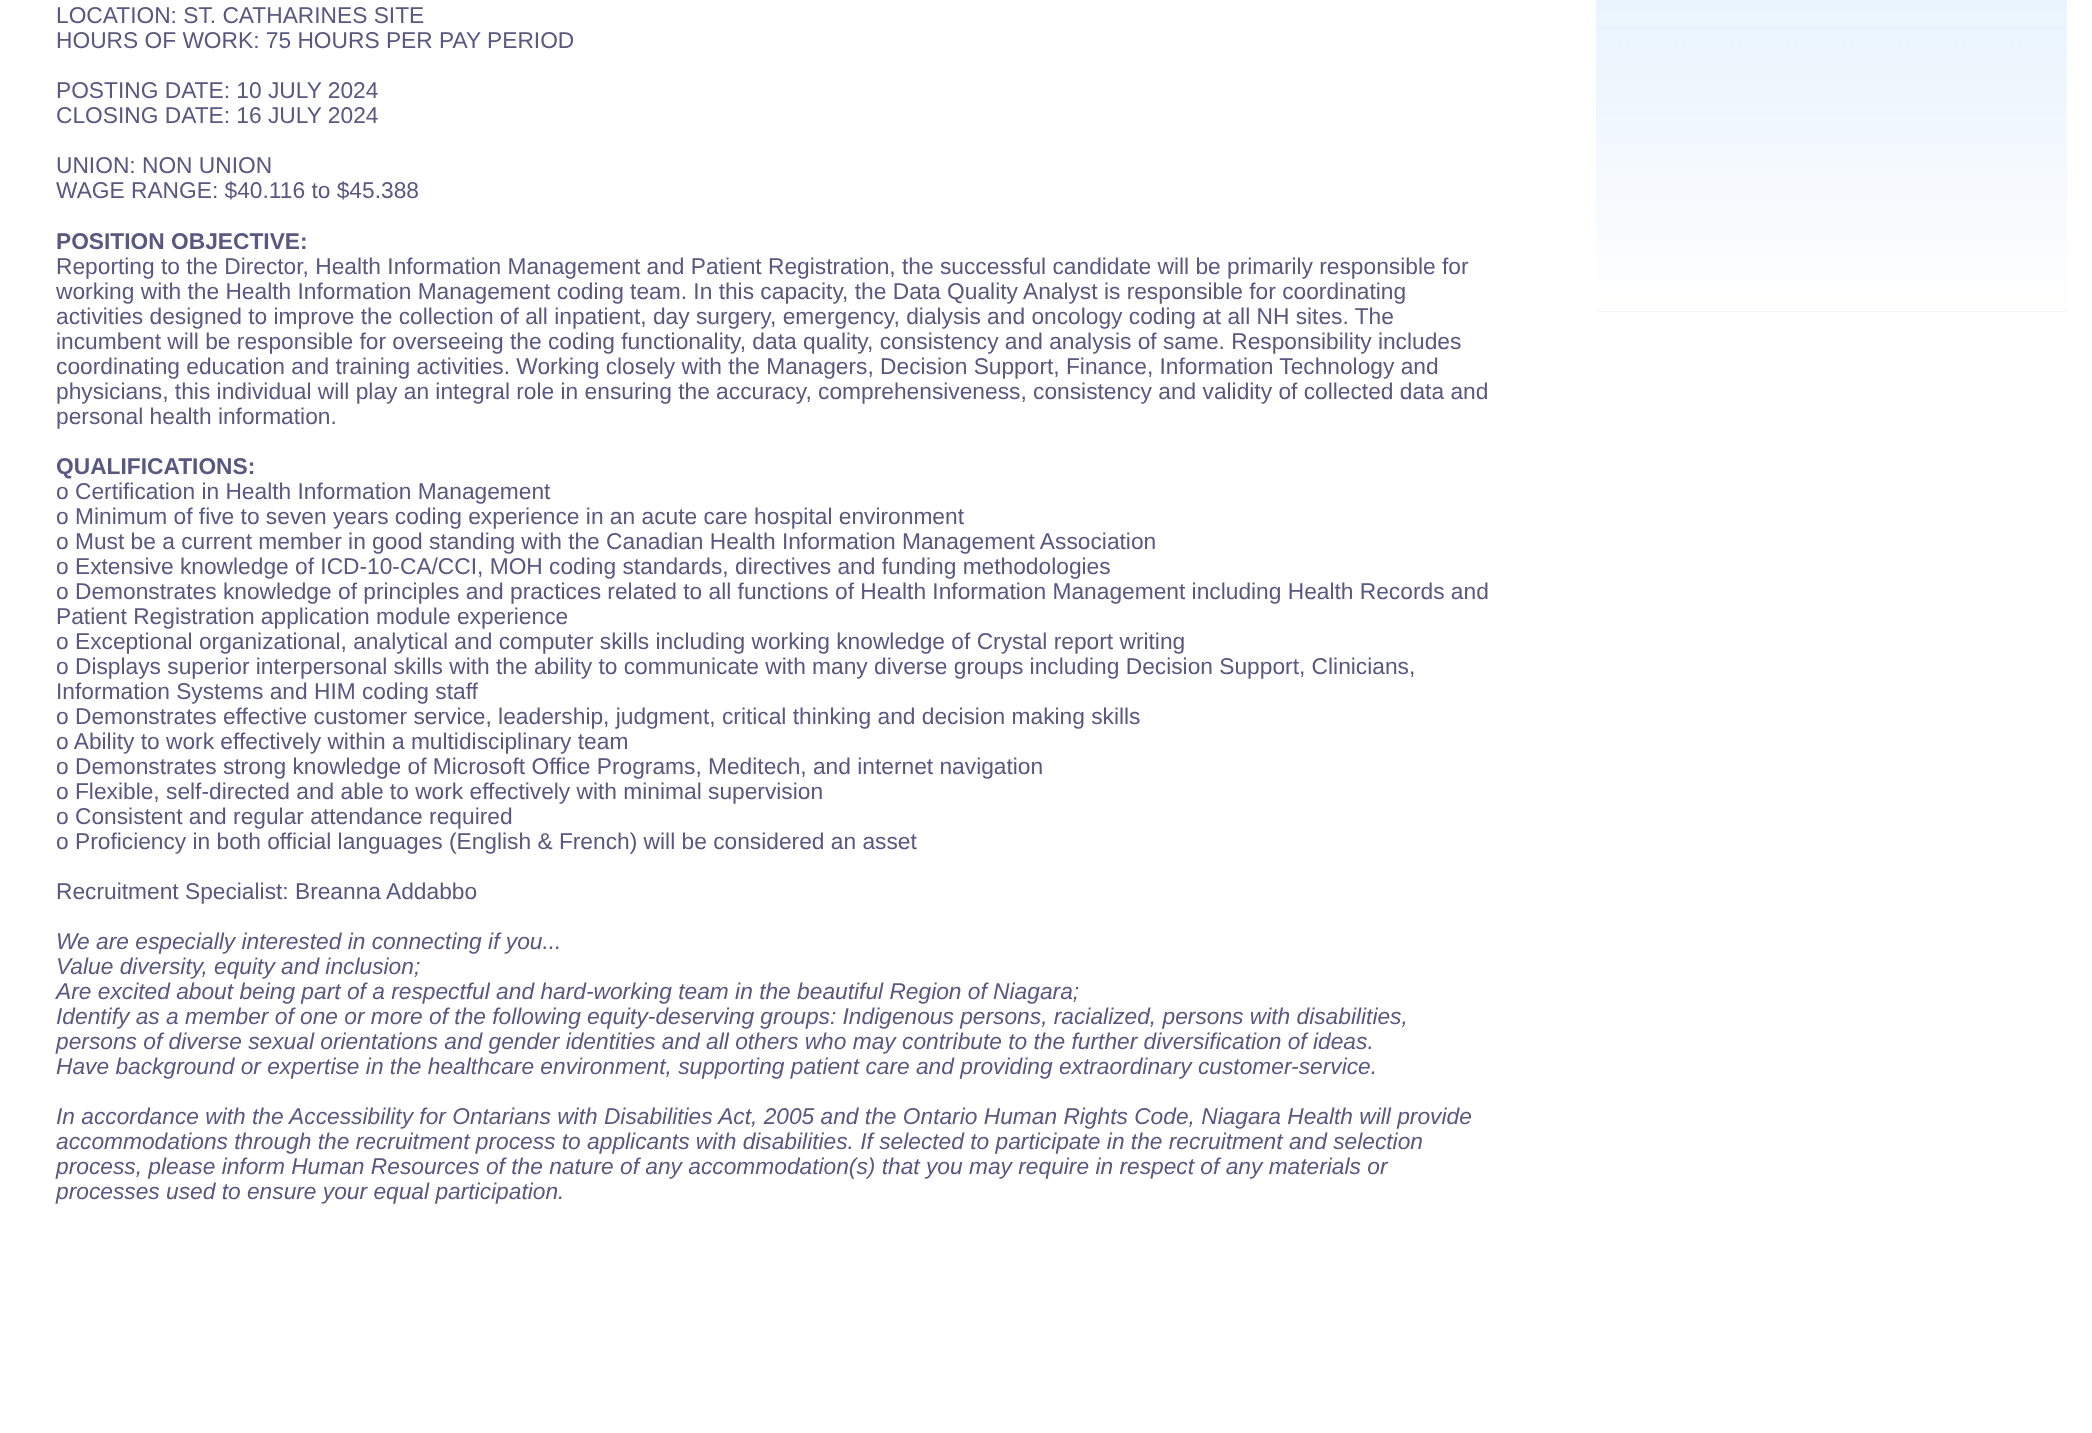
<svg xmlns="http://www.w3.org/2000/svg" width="2092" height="1433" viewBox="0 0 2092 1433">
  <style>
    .t1 { font: 22.75px Liberation Sans; fill: #585880; }
    .t2 { font: bold 22.75px Liberation Sans; fill: #585880; }
    .t3 { font: italic 22.75px Liberation Sans; fill: #585880; }
  </style>
  <rect width="100%" height="100%" fill="#fff"/>
  <text x="56" y="23" class="t1">LOCATION: ST. CATHARINES SITE</text>
  <text x="56" y="48" class="t1">HOURS OF WORK: 75 HOURS PER PAY PERIOD</text>
  <text x="56" y="98" class="t1">POSTING DATE: 10 JULY 2024</text>
  <text x="56" y="123" class="t1">CLOSING DATE: 16 JULY 2024</text>
  <text x="56" y="173" class="t1">UNION: NON UNION</text>
  <text x="56" y="198" class="t1">WAGE RANGE: $40.116 to $45.388</text>
  <text x="56" y="249" class="t2">POSITION OBJECTIVE:</text>
  <text x="56" y="274" class="t1">Reporting to the Director, Health Information Management and Patient Registration, the successful candidate will be primarily responsible for</text>
  <text x="56" y="299" class="t1">working with the Health Information Management coding team. In this capacity, the Data Quality Analyst is responsible for coordinating</text>
  <text x="56" y="324" class="t1">activities designed to improve the collection of all inpatient, day surgery, emergency, dialysis and oncology coding at all NH sites. The</text>
  <text x="56" y="349" class="t1">incumbent will be responsible for overseeing the coding functionality, data quality, consistency and analysis of same. Responsibility includes</text>
  <text x="56" y="374" class="t1">coordinating education and training activities. Working closely with the Managers, Decision Support, Finance, Information Technology and</text>
  <text x="56" y="399" class="t1">physicians, this individual will play an integral role in ensuring the accuracy, comprehensiveness, consistency and validity of collected data and</text>
  <text x="56" y="424" class="t1">personal health information.</text>
  <text x="56" y="474" class="t2">QUALIFICATIONS:</text>
  <text x="56" y="499" class="t1">o Certification in Health Information Management</text>
  <text x="56" y="524" class="t1">o Minimum of five to seven years coding experience in an acute care hospital environment</text>
  <text x="56" y="549" class="t1">o Must be a current member in good standing with the Canadian Health Information Management Association</text>
  <text x="56" y="574" class="t1">o Extensive knowledge of ICD-10-CA/CCI, MOH coding standards, directives and funding methodologies</text>
  <text x="56" y="599" class="t1">o Demonstrates knowledge of principles and practices related to all functions of Health Information Management including Health Records and</text>
  <text x="56" y="624" class="t1">Patient Registration application module experience</text>
  <text x="56" y="649" class="t1">o Exceptional organizational, analytical and computer skills including working knowledge of Crystal report writing</text>
  <text x="56" y="674" class="t1">o Displays superior interpersonal skills with the ability to communicate with many diverse groups including Decision Support, Clinicians,</text>
  <text x="56" y="699" class="t1">Information Systems and HIM coding staff</text>
  <text x="56" y="724" class="t1">o Demonstrates effective customer service, leadership, judgment, critical thinking and decision making skills</text>
  <text x="56" y="749" class="t1">o Ability to work effectively within a multidisciplinary team</text>
  <text x="56" y="774" class="t1">o Demonstrates strong knowledge of Microsoft Office Programs, Meditech, and internet navigation</text>
  <text x="56" y="799" class="t1">o Flexible, self-directed and able to work effectively with minimal supervision</text>
  <text x="56" y="824" class="t1">o Consistent and regular attendance required</text>
  <text x="56" y="849" class="t1">o Proficiency in both official languages (English &amp; French) will be considered an asset</text>
  <text x="56" y="899" class="t1">Recruitment Specialist: Breanna Addabbo</text>
  <text x="56" y="949" class="t3">We are especially interested in connecting if you...</text>
  <text x="56" y="974" class="t3">Value diversity, equity and inclusion;</text>
  <text x="56" y="999" class="t3">Are excited about being part of a respectful and hard-working team in the beautiful Region of Niagara;</text>
  <text x="56" y="1024" class="t3">Identify as a member of one or more of the following equity-deserving groups: Indigenous persons, racialized, persons with disabilities,</text>
  <text x="56" y="1049" class="t3">persons of diverse sexual orientations and gender identities and all others who may contribute to the further diversification of ideas.</text>
  <text x="56" y="1074" class="t3">Have background or expertise in the healthcare environment, supporting patient care and providing extraordinary customer-service.</text>
  <text x="56" y="1124" class="t3">In accordance with the Accessibility for Ontarians with Disabilities Act, 2005 and the Ontario Human Rights Code, Niagara Health will provide</text>
  <text x="56" y="1149" class="t3">accommodations through the recruitment process to applicants with disabilities. If selected to participate in the recruitment and selection</text>
  <text x="56" y="1174" class="t3">process, please inform Human Resources of the nature of any accommodation(s) that you may require in respect of any materials or</text>
  <text x="56" y="1199" class="t3">processes used to ensure your equal participation.</text>
  <rect x="1596" y="0" width="471" height="312" fill="#f6f6f6"/>
  <image x="1596" y="0" width="471" height="311" href="images/1.png"/>
</svg>
